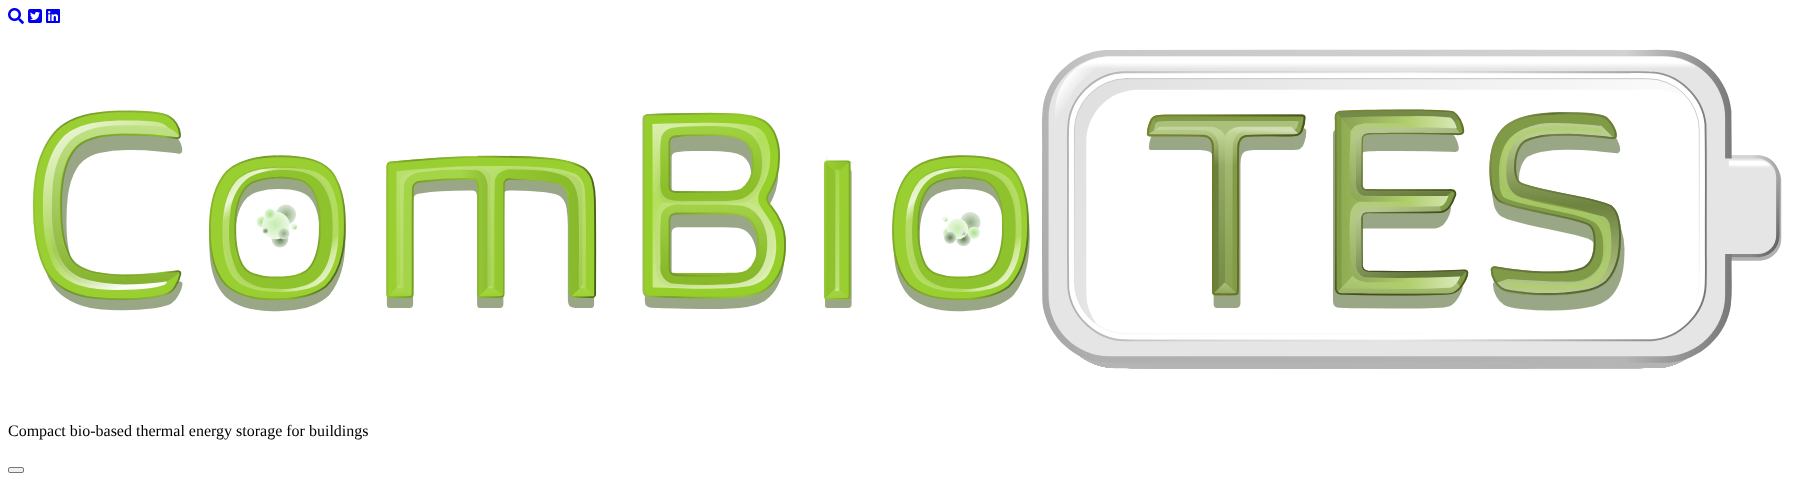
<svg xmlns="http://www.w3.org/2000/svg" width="1799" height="478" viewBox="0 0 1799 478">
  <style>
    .t1 { font: 16px Liberation Serif; fill: #000; }
  </style>
  <rect width="100%" height="100%" fill="#fff"/>
  <image x="8" y="8" width="16" height="16" href="images/1.png"/>
  <image x="28" y="9" width="14" height="14" href="images/2.png"/>
  <image x="46" y="9" width="14" height="14" href="images/3.png"/>
  <image x="32" y="49" width="1750" height="320" href="images/4.png"/>
  <text x="8" y="436" class="t1">Compact bio-based thermal energy storage for buildings</text>
  <rect x="8.5" y="467.5" width="15" height="5" rx="1.5" fill="#efefef" stroke="#767676"/>
</svg>
